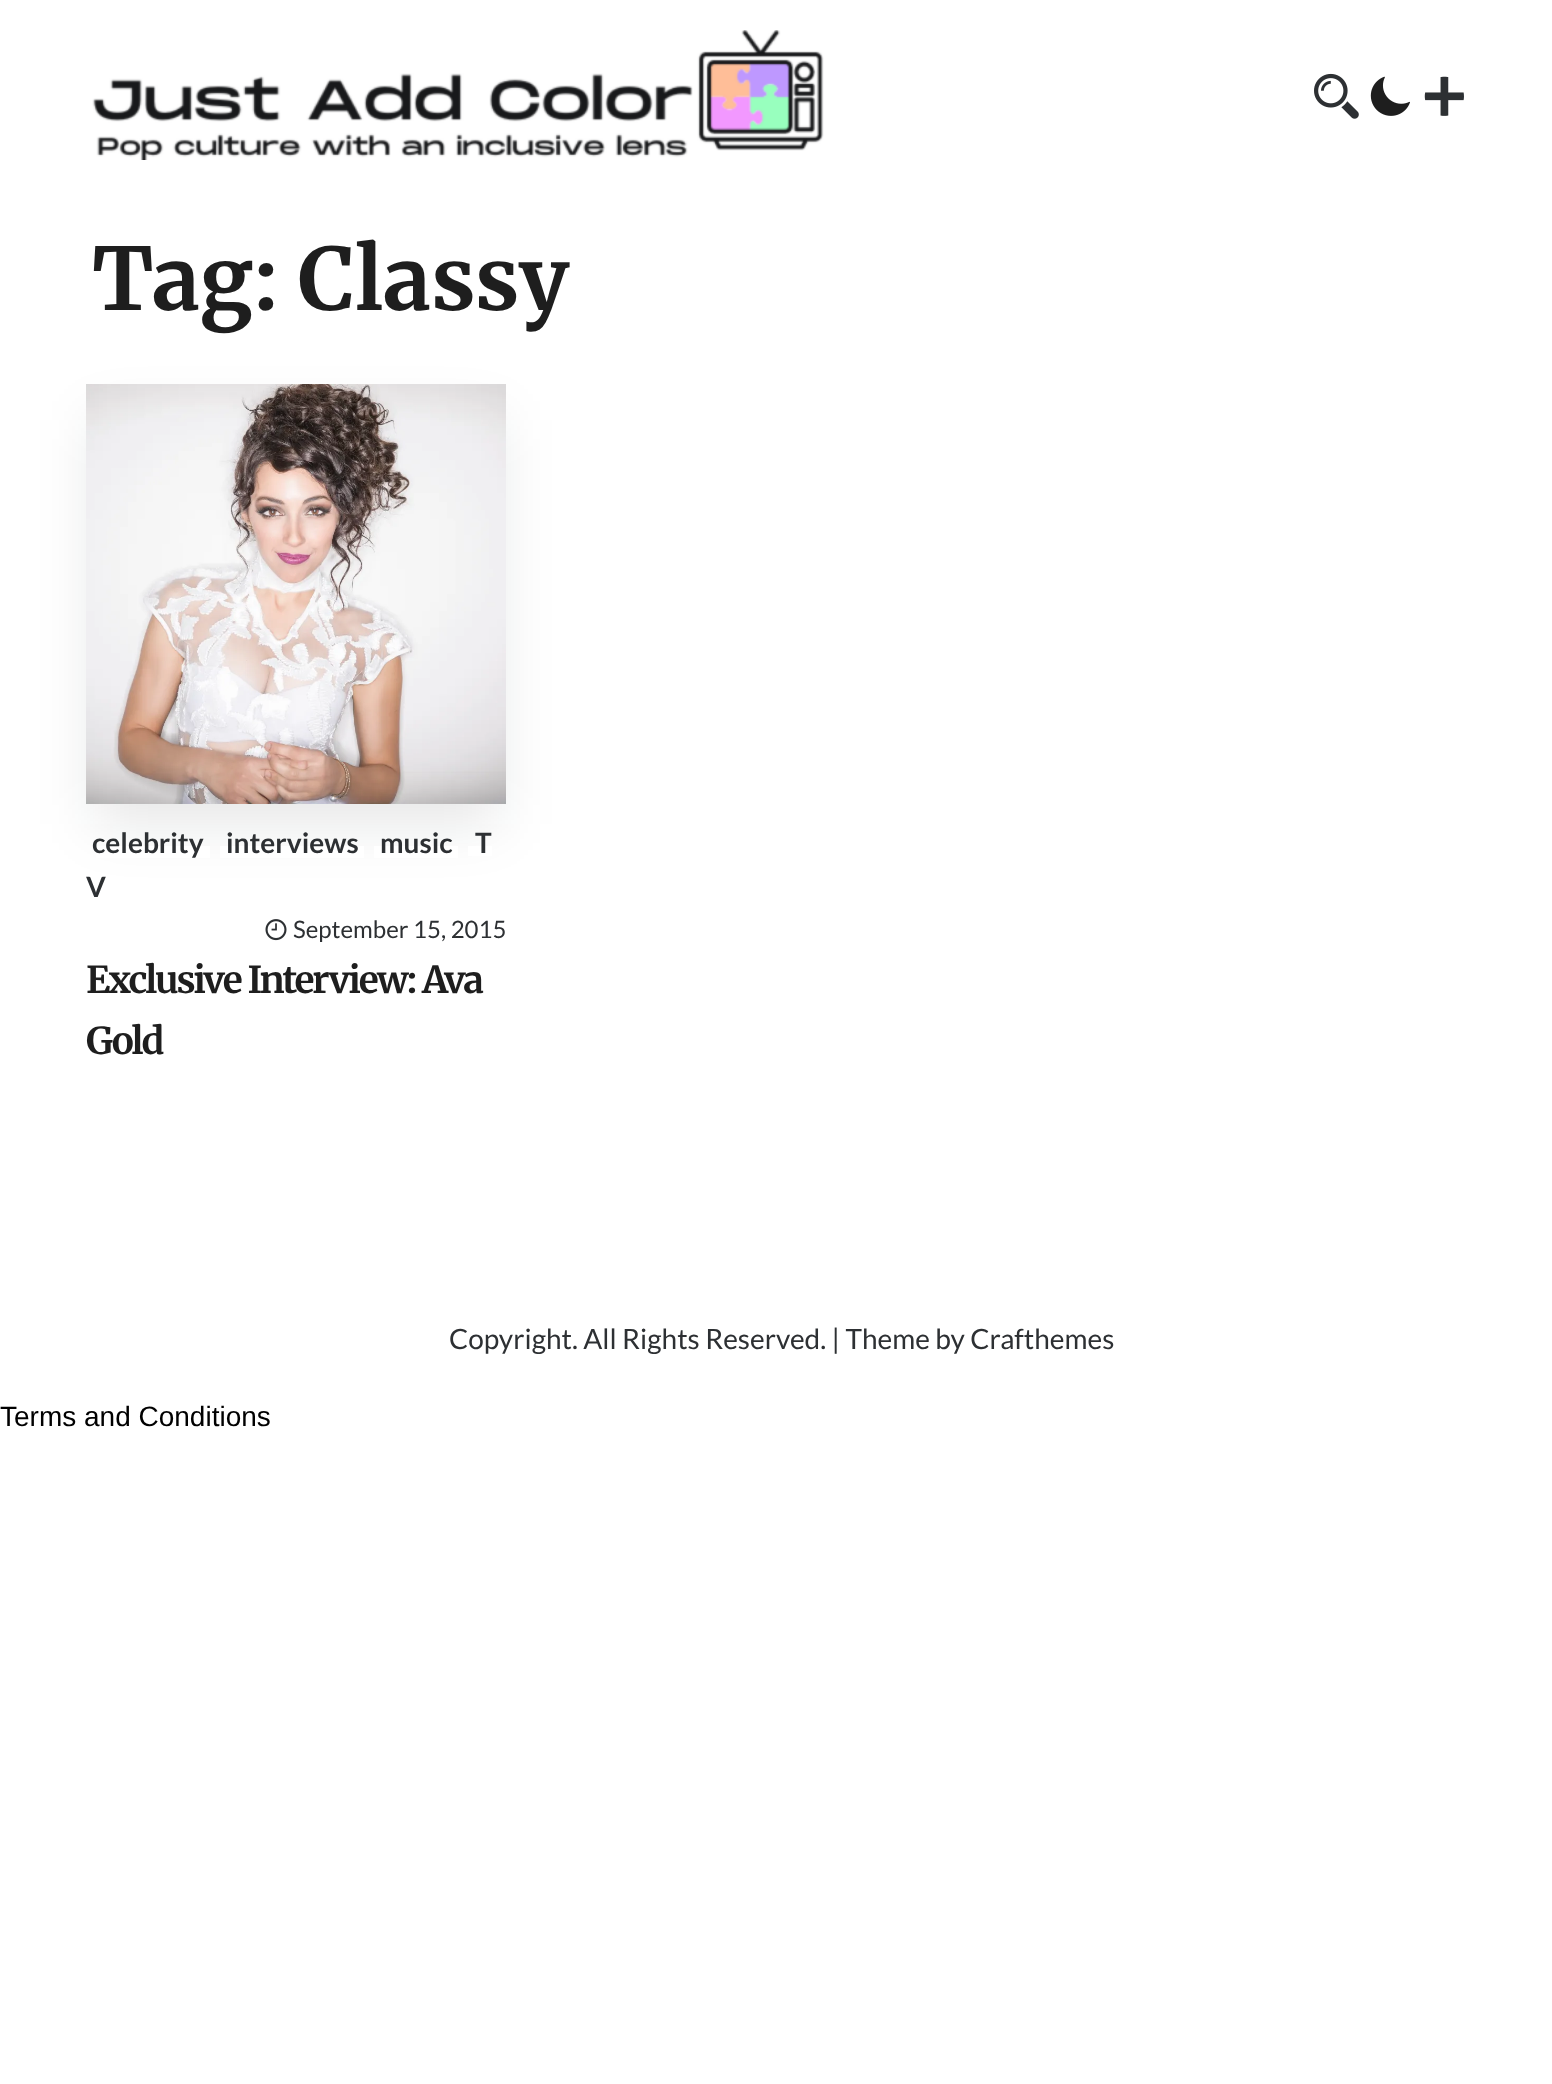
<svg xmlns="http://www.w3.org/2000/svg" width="1552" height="2084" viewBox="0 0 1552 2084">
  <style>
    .t1 { font: bold 86px Merriweather; fill: #1e1e1e; }
    .t2 { font: bold 28px Lato; fill: #2d3033; }
    .t3 { font: 24px Lato; fill: #2d3033; }
    .t4 { font: bold 37px Merriweather; letter-spacing: -2px; fill: #1e1e1e; }
    .t5 { font: 28px Lato; fill: #2d3033; }
    .t6 { font: 28px Liberation Sans; fill: #000; }
  </style>
  <rect width="100%" height="100%" fill="#fff"/>
  <image x="92" y="30" width="732" height="130" href="images/1.png"/>
  <image x="1314" y="73" width="45" height="46" href="images/2.png"/>
  <image x="1370" y="76" width="40" height="40" href="images/3.png"/>
  <image x="1424" y="76" width="40" height="40" href="images/4.png"/>
  <text x="92" y="310" class="t1">Tag: Classy</text>
  <rect x="94" y="420" width="404" height="404" fill="#0e11141a" filter="blur(28px)"/>
  <image x="86" y="384" width="420" height="420" href="images/5.png"/>
  <rect x="96" y="846" width="114" height="12" fill="#fff"/>
  <text x="92" y="853" class="t2">celebrity</text>
  <rect x="220" y="846" width="144" height="12" fill="#fff"/>
  <text x="226" y="853" class="t2">interviews</text>
  <rect x="374" y="846" width="84" height="12" fill="#fff"/>
  <text x="380" y="853" class="t2">music</text>
  <rect x="468" y="846" width="24" height="10" fill="#fff"/>
  <text x="475" y="853" class="t2">T</text>
  <text x="86" y="897" class="t2">V</text>
  <image x="265" y="919" width="22" height="22" href="images/6.png"/>
  <text x="293" y="938" class="t3">September 15, 2015</text>
  <text x="86" y="993" class="t4">Exclusive Interview: Ava</text>
  <text x="86" y="1054" class="t4">Gold</text>
  <text x="449" y="1349" class="t5">Copyright. All Rights Reserved. | Theme by Crafthemes</text>
  <text x="0" y="1426" class="t6">Terms and Conditions</text>
</svg>
